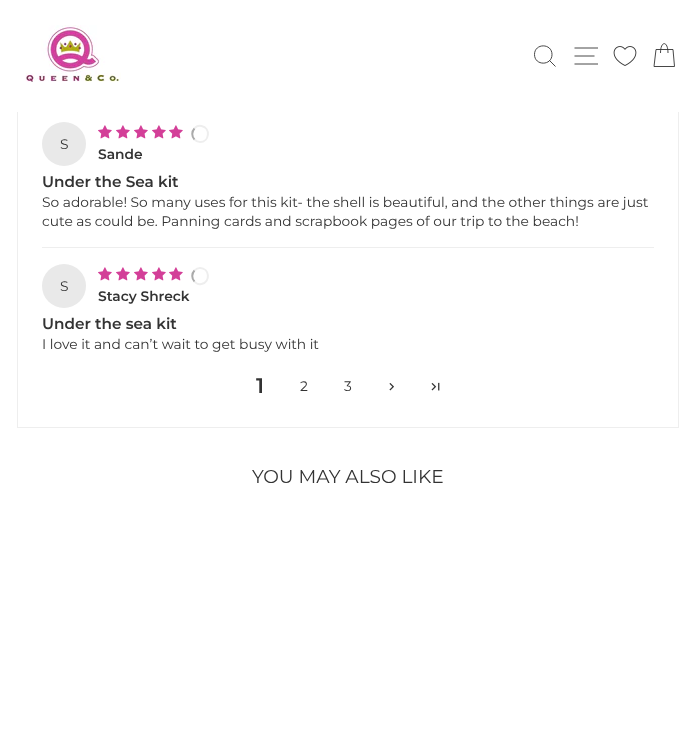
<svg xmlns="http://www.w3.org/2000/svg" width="696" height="732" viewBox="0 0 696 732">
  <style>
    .t1 { font: 13.8px Montserrat; fill: #333; }
    .t2 { font: 600 13.8px Montserrat; fill: #333; }
    .t3 { font: 600 15.25px Montserrat; fill: #333; }
    .t4 { font: 600 21px Montserrat; fill: #333; }
    .t5 { font: 18.6px Montserrat; fill: #333; }
  </style>
  <rect width="100%" height="100%" fill="#fff"/>
  <rect x="17.5" y="-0.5" width="661" height="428" fill="none" stroke="#eee"/>
  <rect x="0" y="0" width="696" height="112" fill="#00000033" filter="blur(0.5px)"/>
  <rect x="0" y="0" width="696" height="112" fill="#fff"/>
  <image x="25" y="25" width="96" height="57" href="images/1.png"/>
  <path d="M552 54.5C552 66 534.5 66 534.5 54.5C534.5 43 552 43 552 54.5ZM555.5 66.5L549.5 60.5" fill="none" stroke="#333" stroke-width="0.9"/>
  <path d="M574.5 48H598M574.5 56H594.5M574.5 64H598" fill="none" stroke="#333" stroke-width="0.9"/>
  <image x="613" y="46" width="24" height="20" href="images/2.png"/>
  <path d="M660.5 53C660.5 40.5 668 40.5 668 53M656 49.5H673L674.5 66.5H654Z" fill="none" stroke="#333" stroke-width="0.9"/>
  <image x="98" y="125" width="14" height="14" href="images/3.png"/>
  <image x="116" y="125" width="14" height="14" href="images/3.png"/>
  <image x="134" y="125" width="14" height="14" href="images/3.png"/>
  <image x="152" y="125" width="14" height="14" href="images/3.png"/>
  <image x="169" y="125" width="14" height="14" href="images/3.png"/>
  <path d="M194.5 128.5C196 126.5 199 125.5 201.5 126C211 128 209.5 142 200 142C198 142 196 141 194.5 139.5" fill="none" stroke="#eee" stroke-width="2"/>
  <path d="M194.5 139.5C191.5 136.5 191.5 131.5 194.5 128.5" fill="none" stroke="#aaa" stroke-width="2"/>
  <circle cx="64" cy="144" r="22" fill="#e9e9e9"/>
  <text x="60" y="149" class="t1">S</text>
  <text x="98" y="159" class="t2">Sande</text>
  <text x="42" y="187" class="t3">Under the Sea kit</text>
  <text x="42" y="207" class="t1">So adorable! So many uses for this kit- the shell is beautiful, and the other things are just</text>
  <text x="42" y="226" class="t1">cute as could be. Panning cards and scrapbook pages of our trip to the beach!</text>
  <rect x="42" y="247" width="612" height="1" fill="#eee"/>
  <circle cx="64" cy="286" r="22" fill="#e9e9e9"/>
  <text x="60" y="291" class="t1">S</text>
  <image x="98" y="267" width="14" height="14" href="images/3.png"/>
  <image x="116" y="267" width="14" height="14" href="images/3.png"/>
  <image x="134" y="267" width="14" height="14" href="images/3.png"/>
  <image x="152" y="267" width="14" height="14" href="images/3.png"/>
  <image x="169" y="267" width="14" height="14" href="images/3.png"/>
  <path d="M194.5 270.5C196 269 198 268 200 268C209.5 268 211 282 201.5 284C199 284.5 196 283.5 194.5 281.5" fill="none" stroke="#eee" stroke-width="2"/>
  <path d="M194.5 281.5C191.5 278.5 191.5 273.5 194.5 270.5" fill="none" stroke="#aaa" stroke-width="2"/>
  <text x="98" y="301" class="t2">Stacy Shreck</text>
  <text x="42" y="329" class="t3">Under the sea kit</text>
  <text x="42" y="349" class="t1">I love it and can’t wait to get busy with it</text>
  <text x="256" y="393" class="t4">1</text>
  <text x="300" y="391" class="t1">2</text>
  <text x="344" y="391" class="t1">3</text>
  <image x="389" y="383" width="5" height="8" href="images/4.png"/>
  <image x="431" y="382" width="9" height="9" href="images/5.png"/>
  <text x="252" y="483" class="t5">YOU MAY ALSO LIKE</text>
</svg>
